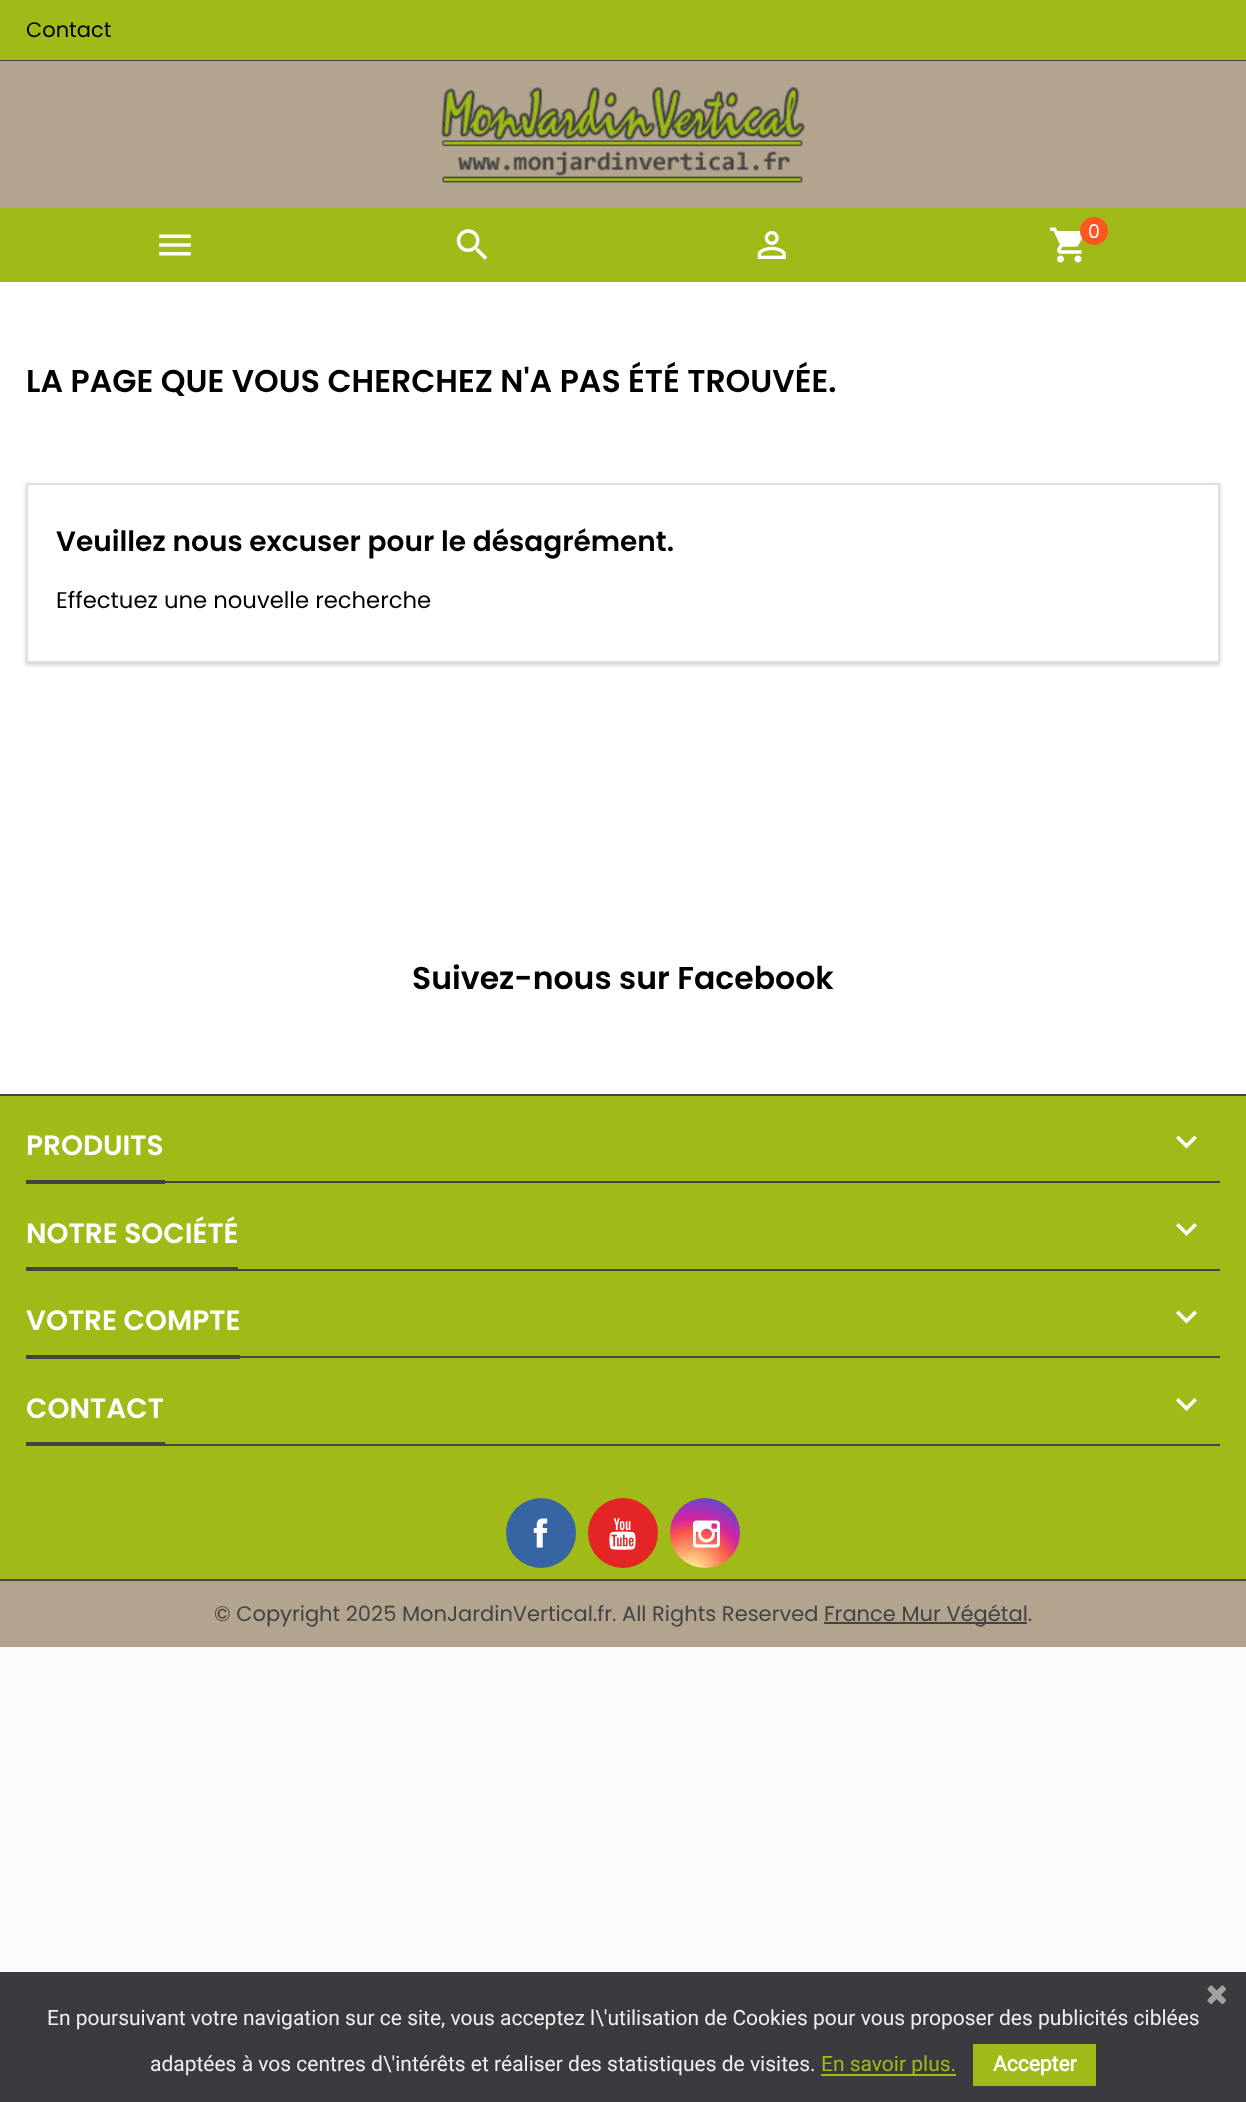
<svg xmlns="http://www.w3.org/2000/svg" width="1246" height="2102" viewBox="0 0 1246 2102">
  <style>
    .t1 { font: 21px Poppins; fill: #000; }
    .t2 { font: 19px Poppins; fill: #fff; }
    .t3 { font: 600 31.5px Poppins; fill: #000; }
    .t4 { font: 600 28px Poppins; fill: #000; }
    .t5 { font: 22.75px Poppins; fill: #000; }
    .t6 { font: 600 28px Poppins; fill: #fff; }
    .t7 { font: 21px Poppins; fill: #434343; }
    .t8 { font: 21px Roboto; fill: #efefef; }
    .t9 { font: 21px Roboto; fill: #a0bb18; }
    .t10 { font: bold 21px Roboto; fill: #fff; }
  </style>
  <defs>
    <radialGradient id="g1" gradientUnits="userSpaceOnUse" cx="691" cy="1573" r="90"><stop offset="0" stop-color="#fdf497"/><stop offset="0.05" stop-color="#fdf497"/><stop offset="0.45" stop-color="#fd5949"/><stop offset="0.6" stop-color="#d6249f"/><stop offset="1" stop-color="#285aeb"/></radialGradient>
  </defs>
  <rect width="100%" height="100%" fill="#fbfbfb"/>
  <rect x="0" y="282" width="1246" height="812" fill="#fff"/>
  <rect x="0" y="0" width="1246" height="60" fill="#a0bb18"/>
  <rect x="0" y="60" width="1246" height="1" fill="#434343"/>
  <text x="26" y="37" class="t1">Contact</text>
  <rect x="0" y="61" width="1246" height="147" fill="#b3a48f"/>
  <image x="441" y="87" width="365" height="96" href="images/1.png"/>
  <rect x="0" y="208" width="1246" height="74" fill="#a0bb18"/>
  <image x="159" y="234" width="32" height="22" href="images/2.png"/>
  <image x="456" y="229" width="32" height="31" href="images/3.png"/>
  <image x="757" y="231" width="29" height="28" href="images/4.png"/>
  <image x="1049" y="227" width="34" height="36" href="images/5.png"/>
  <circle cx="1094" cy="231" r="14" fill="#ff5722"/>
  <text x="1088" y="238" class="t2">0</text>
  <text x="26" y="392" class="t3">LA PAGE QUE VOUS CHERCHEZ N'A PAS ÉTÉ TROUVÉE.</text>
  <rect x="26" y="485" width="1194" height="180" fill="#00000033" filter="blur(2px)"/>
  <rect x="27" y="484" width="1192" height="178" fill="#fff" stroke="#dfdfdf" stroke-width="2"/>
  <text x="56" y="551" class="t4">Veuillez nous excuser pour le désagrément.</text>
  <text x="56" y="608" class="t5">Effectuez une nouvelle recherche</text>
  <text x="412" y="989" class="t3">Suivez-nous sur Facebook</text>
  <rect x="0" y="1096" width="1246" height="483" fill="#a0bb18"/>
  <rect x="0" y="1094" width="1246" height="2" fill="#434343"/>
  <rect x="165" y="1181" width="1055" height="2" fill="#434343"/>
  <rect x="26" y="1180" width="139" height="4" fill="#434343"/>
  <text x="26" y="1155" class="t6">PRODUITS</text>
  <path d="M1178.5 1135.5L1186.5 1143.5L1194.5 1135.5L1197 1138L1186.5 1148.5L1176 1138Z" fill="#fff"/>
  <rect x="238" y="1269" width="982" height="2" fill="#434343"/>
  <rect x="26" y="1267" width="212" height="4" fill="#434343"/>
  <text x="26" y="1243" class="t6">NOTRE SOCIÉTÉ</text>
  <path d="M1178.5 1223L1186.5 1231L1194.5 1223L1197 1225.5L1186.5 1236L1176 1225.5Z" fill="#fff"/>
  <rect x="240" y="1356" width="980" height="2" fill="#434343"/>
  <rect x="26" y="1355" width="214" height="4" fill="#434343"/>
  <text x="26" y="1330" class="t6">VOTRE COMPTE</text>
  <path d="M1178.5 1310.5L1186.5 1318.5L1194.5 1310.5L1197 1313L1186.5 1323.5L1176 1313Z" fill="#fff"/>
  <rect x="165" y="1444" width="1055" height="2" fill="#434343"/>
  <rect x="26" y="1442" width="139" height="4" fill="#434343"/>
  <text x="26" y="1418" class="t6">CONTACT</text>
  <path d="M1178.5 1398L1186.5 1406L1194.5 1398L1197 1400.5L1186.5 1411L1176 1400.5Z" fill="#fff"/>
  <circle cx="541" cy="1533" r="35" fill="#3765a3"/>
  <image x="533" y="1518" width="15" height="30" href="images/6.png"/>
  <circle cx="623" cy="1533" r="35" fill="#e42526"/>
  <image x="609" y="1518" width="27" height="32" href="images/7.png"/>
  <circle cx="705" cy="1533" r="35" fill="url(#g1)"/>
  <image x="693" y="1520" width="27" height="28" href="images/8.png"/>
  <rect x="0" y="1581" width="1246" height="66" fill="#b3a48f"/>
  <rect x="0" y="1579" width="1246" height="2" fill="#434343"/>
  <text x="214" y="1621" class="t7">© Copyright 2025 MonJardinVertical.fr. All Rights Reserved</text>
  <rect x="824" y="1622" width="203" height="2" fill="#434343"/>
  <text x="824" y="1621" class="t7">France Mur Végétal.</text>
  <rect x="0" y="1972" width="1246" height="130" fill="#393b3e"/>
  <image x="1207" y="1985" width="19" height="19" href="images/9.png"/>
  <text x="47" y="2025" class="t8">En poursuivant votre navigation sur ce site, vous acceptez l\'utilisation de Cookies pour vous proposer des publicités ciblées</text>
  <text x="150" y="2071" class="t8">adaptées à vos centres d\'intérêts et réaliser des statistiques de visites.</text>
  <rect x="821" y="2074" width="135" height="2" fill="#a0bb18"/>
  <text x="821" y="2071" class="t9">En savoir plus.</text>
  <rect x="973" y="2044" width="123" height="42" fill="#a0bb18"/>
  <text x="993" y="2071" class="t10">Accepter</text>
</svg>
